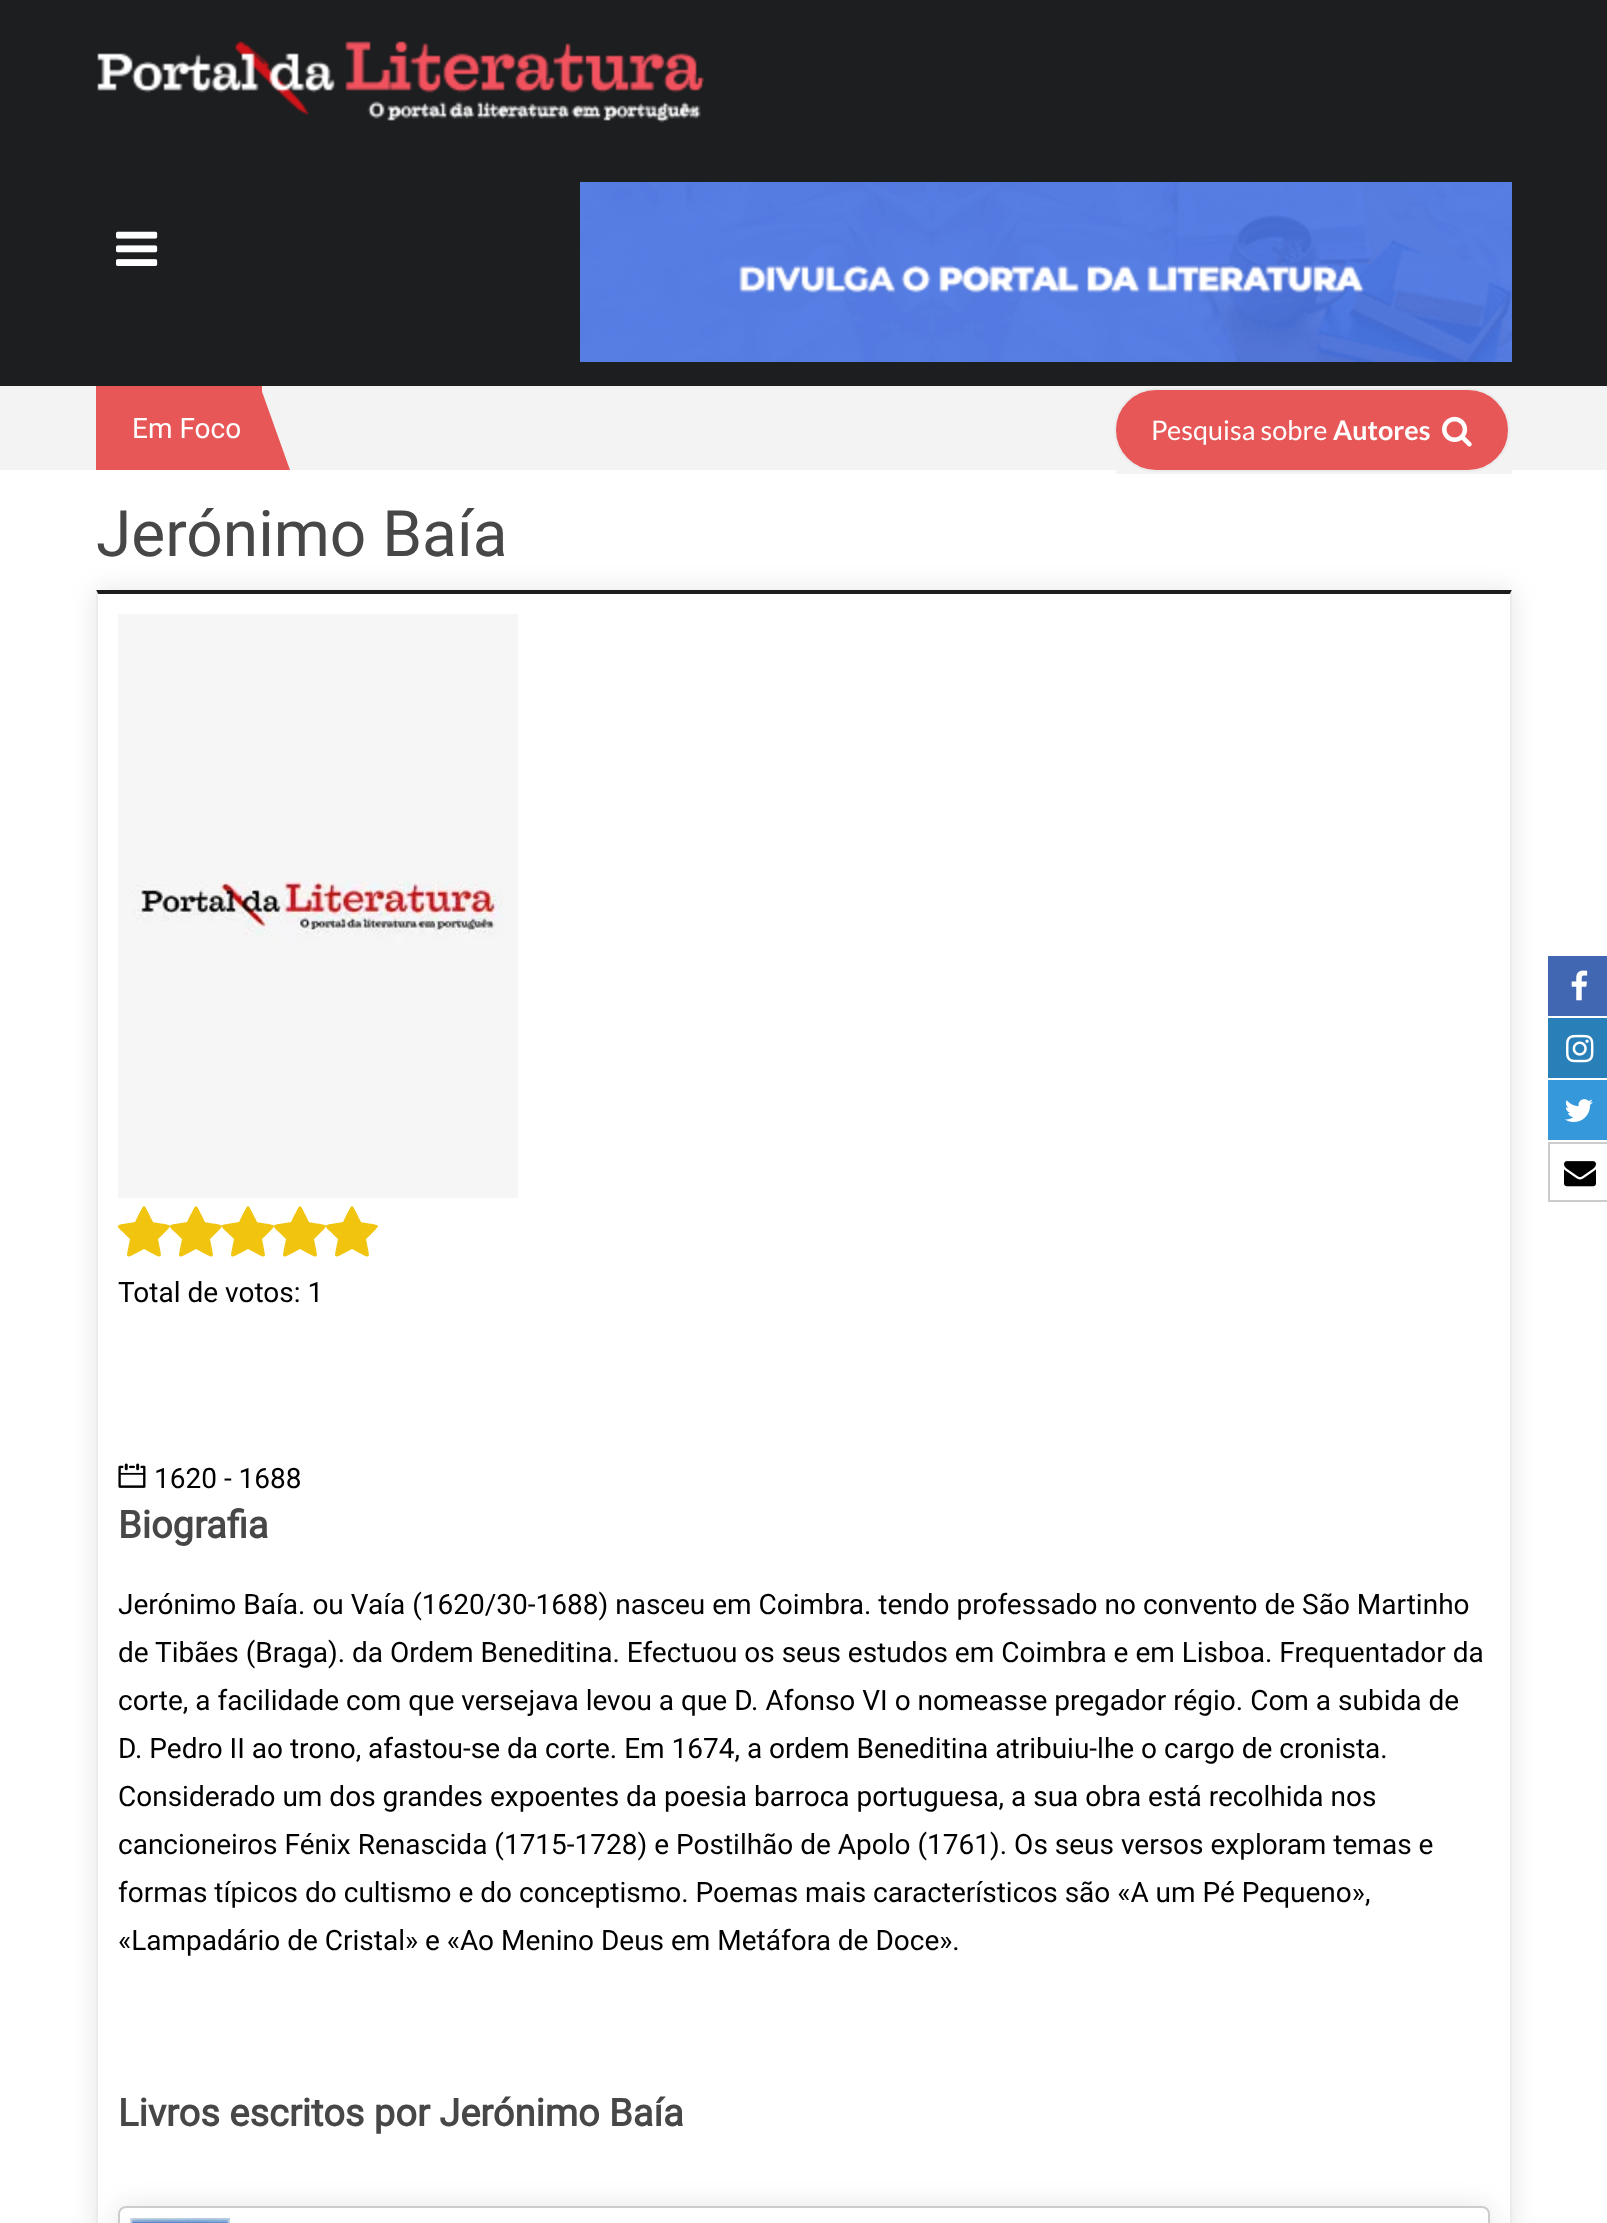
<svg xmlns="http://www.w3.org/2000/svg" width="1607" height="2223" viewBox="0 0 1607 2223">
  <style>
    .t1 { font: 28px Roboto; fill: #fff; }
    .t2 { font: 27px Lato; fill: #fff; }
    .t3 { font: bold 27px Lato; fill: #fff; }
    .t4 { font: 64px Roboto; fill: #484747; }
    .t5 { font: 28px Roboto; fill: #000; }
    .t6 { font: bold 38px Roboto; fill: #484747; }
  </style>
  <defs>
    <clipPath id="clip1"><path d="M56 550H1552V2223H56ZM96 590H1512V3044H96Z" clip-rule="evenodd"/></clipPath>
    <clipPath id="clip2"><path d="M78 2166H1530V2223H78ZM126 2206H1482C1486.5 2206 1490 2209.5 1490 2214V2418C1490 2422.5 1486.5 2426 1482 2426H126C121.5 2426 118 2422.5 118 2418V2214C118 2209.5 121.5 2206 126 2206Z" clip-rule="evenodd"/></clipPath>
  </defs>
  <rect width="100%" height="100%" fill="#fff"/>
  <rect x="0" y="0" width="1607" height="386" fill="#1d1e20"/>
  <image x="97" y="41" width="607" height="82" href="images/1.png"/>
  <image x="116" y="231" width="42" height="35" href="images/2.png"/>
  <image x="580" y="182" width="932" height="180" href="images/3.png"/>
  <rect x="0" y="386" width="1607" height="84" fill="#f3f3f3"/>
  <rect x="96" y="386" width="166" height="84" fill="#e75757"/>
  <text x="132" y="438" class="t1">Em Foco</text>
  <path d="M260 470V386L290 470Z" fill="#e75757"/>
  <rect x="1116" y="470" width="396" height="4" fill="#f3f3f3"/>
  <rect x="1115" y="389" width="394" height="82" rx="41" fill="#e75757" stroke="#ebebeb" stroke-width="2"/>
  <text x="1151" y="440" class="t2">Pesquisa sobre</text>
  <text x="1333" y="440" class="t3">Autores</text>
  <image x="1442" y="416" width="30" height="31" href="images/4.png"/>
  <text x="96" y="556" class="t4">Jerónimo Baía</text>
  <g clip-path="url(#clip1)">
    <rect x="96" y="590" width="1416" height="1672" fill="#0000001a" filter="blur(13px)"/>
  </g>
  <path d="M96 590H1512L1510 594H98Z" fill="#1d1e20"/>
  <path d="M1512 590V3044L1510 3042V594Z" fill="#ececec"/>
  <path d="M96 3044V590L98 594V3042Z" fill="#ececec"/>
  <image x="118" y="614" width="400" height="584" href="images/5.png"/>
  <path d="M170 1226C170 1228 160 1237 158 1239C162 1261 165 1260 144 1249C123 1260 126 1261 130 1239C114 1223 112 1226 135 1222C146 1201 142 1201 153 1222C155 1223 170 1224 170 1226Z" fill="#f1c40f"/>
  <path d="M222 1226C222 1228 212 1237 210 1239C214 1261 217 1260 196 1249C175 1260 178 1261 182 1239C166 1223 164 1226 187 1222C198 1201 194 1201 205 1222C207 1223 222 1224 222 1226Z" fill="#f1c40f"/>
  <path d="M274 1226C274 1228 264 1237 262 1239C266 1261 269 1260 248 1249C227 1260 230 1261 234 1239C218 1223 216 1226 239 1222C250 1201 246 1201 257 1222C259 1223 274 1224 274 1226Z" fill="#f1c40f"/>
  <path d="M326 1226C326 1228 316 1237 314 1239C318 1261 321 1260 300 1249C279 1260 282 1261 286 1239C270 1223 268 1226 291 1222C302 1201 298 1201 309 1222C311 1223 326 1224 326 1226Z" fill="#f1c40f"/>
  <path d="M378 1226C378 1228 368 1237 366 1239C370 1261 373 1260 352 1249C331 1260 334 1261 338 1239C322 1223 320 1226 343 1222C354 1201 350 1201 361 1222C363 1223 378 1224 378 1226Z" fill="#f1c40f"/>
  <text x="118" y="1302" class="t5">Total de votos: 1</text>
  <image x="118" y="1463" width="28" height="25" href="images/6.png"/>
  <text x="154" y="1488" class="t5">1620 - 1688</text>
  <text x="118" y="1538" class="t6">Biografia</text>
  <text x="118" y="1614" class="t5">Jerónimo Baía. ou Vaía (1620/30-1688) nasceu em Coimbra. tendo professado no convento de São Martinho</text>
  <text x="118" y="1662" class="t5">de Tibães (Braga). da Ordem Beneditina. Efectuou os seus estudos em Coimbra e em Lisboa. Frequentador da</text>
  <text x="118" y="1710" class="t5">corte, a facilidade com que versejava levou a que D. Afonso VI o nomeasse pregador régio. Com a subida de</text>
  <text x="118" y="1758" class="t5">D. Pedro II ao trono, afastou-se da corte. Em 1674, a ordem Beneditina atribuiu-lhe o cargo de cronista.</text>
  <text x="118" y="1806" class="t5">Considerado um dos grandes expoentes da poesia barroca portuguesa, a sua obra está recolhida nos</text>
  <text x="118" y="1854" class="t5">cancioneiros Fénix Renascida (1715-1728) e Postilhão de Apolo (1761). Os seus versos exploram temas e</text>
  <text x="118" y="1902" class="t5">formas típicos do cultismo e do conceptismo. Poemas mais característicos são «A um Pé Pequeno»,</text>
  <text x="118" y="1950" class="t5">«Lampadário de Cristal» e «Ao Menino Deus em Metáfora de Doce».</text>
  <text x="118" y="2126" class="t6">Livros escritos por Jerónimo Baía</text>
  <g clip-path="url(#clip2)">
    <rect x="118" y="2206" width="1372" height="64" rx="8" fill="#0000001a" filter="blur(13px)"/>
  </g>
  <rect x="119" y="2207" width="1370" height="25" rx="7" fill="none" stroke="#ccc" stroke-width="2"/>
  <image x="130" y="2218" width="100" height="5" href="images/7.png"/>
  <rect x="1548" y="956" width="59" height="60" fill="#4267b2"/>
  <image x="1571" y="970" width="17" height="31" href="images/8.png"/>
  <rect x="1548" y="1018" width="59" height="60" fill="#2980b9"/>
  <image x="1566" y="1034" width="28" height="29" href="images/9.png"/>
  <rect x="1548" y="1080" width="59" height="60" fill="#3498db"/>
  <image x="1565" y="1099" width="28" height="23" href="images/10.png"/>
  <rect x="1549" y="1143" width="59" height="58" fill="none" stroke="#ccc" stroke-width="2"/>
  <image x="1564" y="1161" width="32" height="26" href="images/11.png"/>
</svg>
